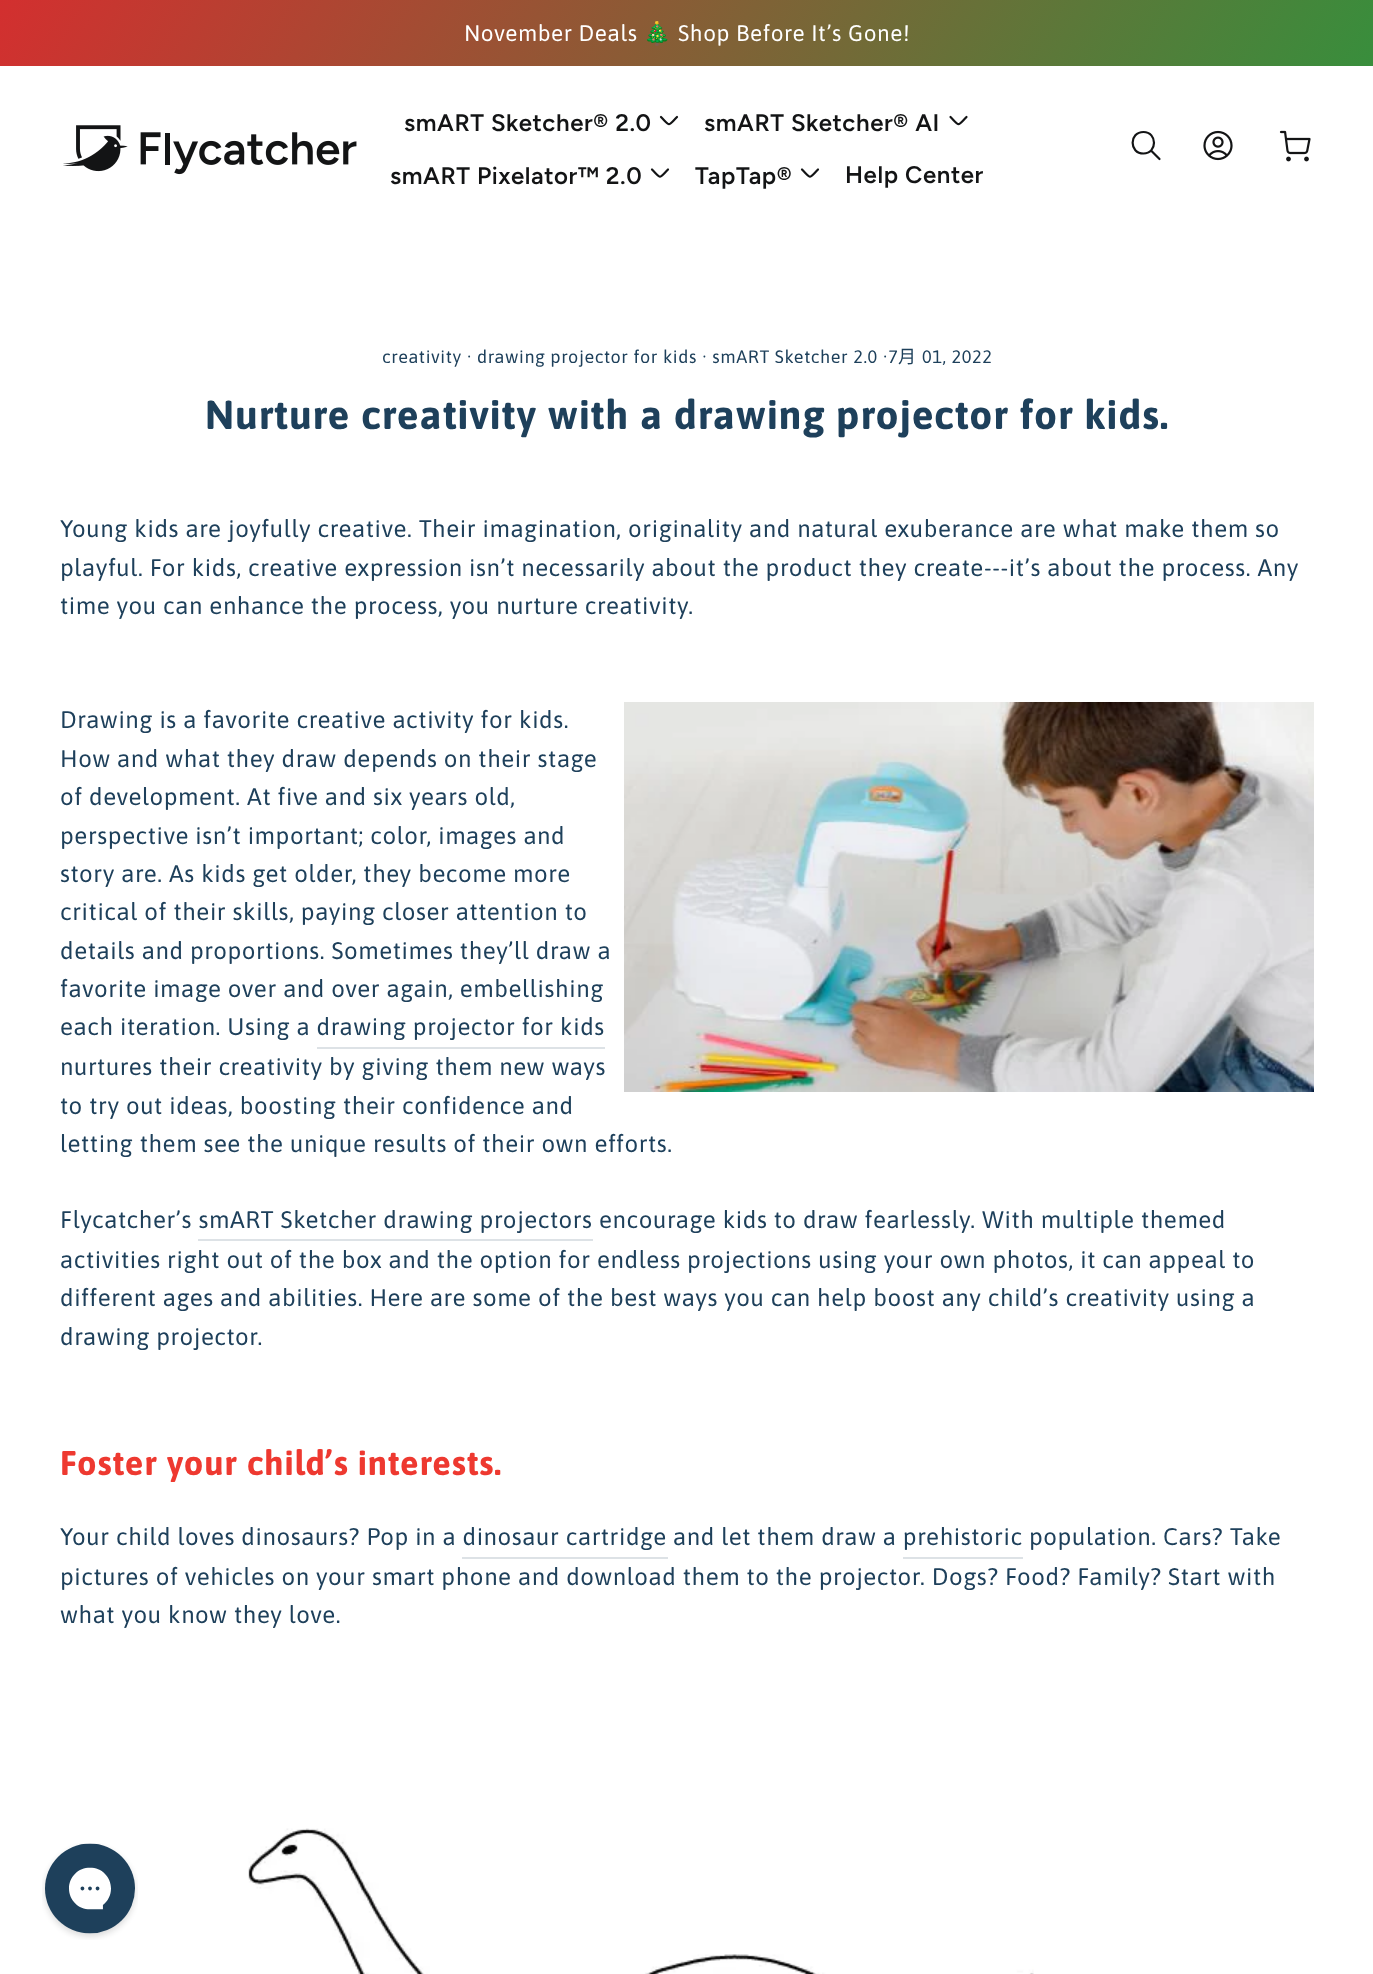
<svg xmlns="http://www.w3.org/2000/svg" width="1373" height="1974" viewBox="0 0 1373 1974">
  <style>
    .t1 { font: 22.5px Asap; letter-spacing: 0.6px; fill: #fff; }
    .t2 { font: 22.5px Noto Color Emoji; letter-spacing: 0.6px; fill: #fff; }
    .t3 { font: 600 24px Figtree; letter-spacing: 0.6px; fill: #131415; }
    .t4 { font: 18px Asap; letter-spacing: 0.6px; fill: #1e405b; }
    .t5 { font: 18px Noto Sans CJK TC; letter-spacing: 0.6px; fill: #1e405b; }
    .t6 { font: bold 40.5px Asap; letter-spacing: 1px; fill: #1e405b; }
    .t7 { font: 24px Asap; letter-spacing: 0.6px; fill: #1e405b; }
    .t8 { font: bold 34.4px Asap; letter-spacing: 0.85px; fill: #ee3930; }
  </style>
  <defs>
    <linearGradient id="g1" gradientUnits="userSpaceOnUse" x1="157" y1="-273" x2="1217" y2="339"><stop offset="0" stop-color="#d32f2f"/><stop offset="1" stop-color="#388e3c"/></linearGradient>
  </defs>
  <rect width="100%" height="100%" fill="#fff"/>
  <rect x="0" y="0" width="1373" height="66" fill="url(#g1)"/>
  <text x="464" y="41" class="t1">November Deals</text>
  <text x="643" y="41" class="t2">🎄</text>
  <text x="678" y="41" class="t1">Shop Before It’s Gone!</text>
  <image x="63" y="125" width="294" height="50" href="images/1.png"/>
  <text x="404" y="131" class="t3">smART Sketcher® 2.0</text>
  <path d="M677 117C667.5 126.5 670.5 126.5 661 117" fill="none" stroke="#131415" stroke-width="2.2" stroke-linecap="round" stroke-linejoin="round"/>
  <text x="704" y="131" class="t3">smART Sketcher® AI</text>
  <path d="M966.5 117C957 126.5 960 126.5 950.5 117" fill="none" stroke="#131415" stroke-width="2.2" stroke-linecap="round" stroke-linejoin="round"/>
  <text x="390" y="184" class="t3">smART Pixelator™ 2.0</text>
  <path d="M668 169.5C658.5 179 661.5 179 652 169.5" fill="none" stroke="#131415" stroke-width="2.2" stroke-linecap="round" stroke-linejoin="round"/>
  <text x="695" y="184" class="t3">TapTap®</text>
  <path d="M818 169.5C808.5 179 811.5 179 802 169.5" fill="none" stroke="#131415" stroke-width="2.2" stroke-linecap="round" stroke-linejoin="round"/>
  <text x="845" y="183" class="t3">Help Center</text>
  <path d="M1159.5 159L1151 150.5M1143.5 153.5C1157.5 153.5 1157.5 132 1143.5 132C1129 132 1129 153.5 1143.5 153.5Z" fill="none" stroke="#131415" stroke-width="2.2" stroke-linecap="round" stroke-linejoin="round"/>
  <image x="1203" y="130" width="30" height="31" href="images/2.png"/>
  <image x="1279" y="130" width="32" height="32" href="images/3.png"/>
  <text x="382" y="363" class="t4">creativity · drawing projector for kids · smART Sketcher 2.0 ·7</text>
  <text x="898" y="363" class="t5">月</text>
  <text x="922" y="363" class="t4">01, 2022</text>
  <text x="205" y="429" class="t6">Nurture creativity with a drawing projector for kids.</text>
  <text x="60" y="537" class="t7">Young kids are joyfully creative. Their imagination, originality and natural exuberance are what make them so</text>
  <text x="60" y="576" class="t7">playful. For kids, creative expression isn’t necessarily about the product they create---it’s about the process. Any</text>
  <text x="60" y="614" class="t7">time you can enhance the process, you nurture creativity.</text>
  <text x="60" y="728" class="t7">Drawing is a favorite creative activity for kids.</text>
  <text x="60" y="767" class="t7">How and what they draw depends on their stage</text>
  <text x="60" y="805" class="t7">of development. At five and six years old,</text>
  <text x="60" y="844" class="t7">perspective isn’t important; color, images and</text>
  <text x="60" y="882" class="t7">story are. As kids get older, they become more</text>
  <text x="60" y="920" class="t7">critical of their skills, paying closer attention to</text>
  <text x="60" y="959" class="t7">details and proportions. Sometimes they’ll draw a</text>
  <text x="60" y="997" class="t7">favorite image over and over again, embellishing</text>
  <text x="60" y="1035" class="t7">each iteration. Using a drawing projector for kids</text>
  <rect x="317" y="1047" width="288" height="2" fill="#dde2e6"/>
  <text x="60" y="1075" class="t7">nurtures their creativity by giving them new ways</text>
  <text x="60" y="1114" class="t7">to try out ideas, boosting their confidence and</text>
  <text x="60" y="1152" class="t7">letting them see the unique results of their own efforts.</text>
  <image x="624" y="702" width="690" height="390" href="images/4.png"/>
  <text x="60" y="1228" class="t7">Flycatcher’s smART Sketcher drawing projectors</text>
  <text x="599" y="1228" class="t7">encourage kids to draw fearlessly. With multiple themed</text>
  <rect x="198" y="1239" width="395" height="2" fill="#dde2e6"/>
  <text x="60" y="1268" class="t7">activities right out of the box and the option for endless projections using your own photos, it can appeal to</text>
  <text x="60" y="1306" class="t7">different ages and abilities. Here are some of the best ways you can help boost any child’s creativity using a</text>
  <text x="60" y="1345" class="t7">drawing projector.</text>
  <text x="60" y="1475" class="t8">Foster your child’s interests.</text>
  <text x="60" y="1545" class="t7">Your child loves dinosaurs? Pop in a dinosaur cartridge</text>
  <text x="673" y="1545" class="t7">and let them draw a prehistoric</text>
  <text x="1029" y="1545" class="t7">population. Cars? Take</text>
  <rect x="462" y="1557" width="206" height="2" fill="#dde2e6"/>
  <rect x="903" y="1557" width="120" height="2" fill="#dde2e6"/>
  <text x="60" y="1585" class="t7">pictures of vehicles on your smart phone and download them to the projector. Dogs? Food? Family? Start with</text>
  <text x="60" y="1623" class="t7">what you know they love.</text>
  <image x="248" y="1828" width="786" height="146" href="images/5.png"/>
  <image x="42" y="1843" width="96" height="97" href="images/6.png"/>
</svg>
